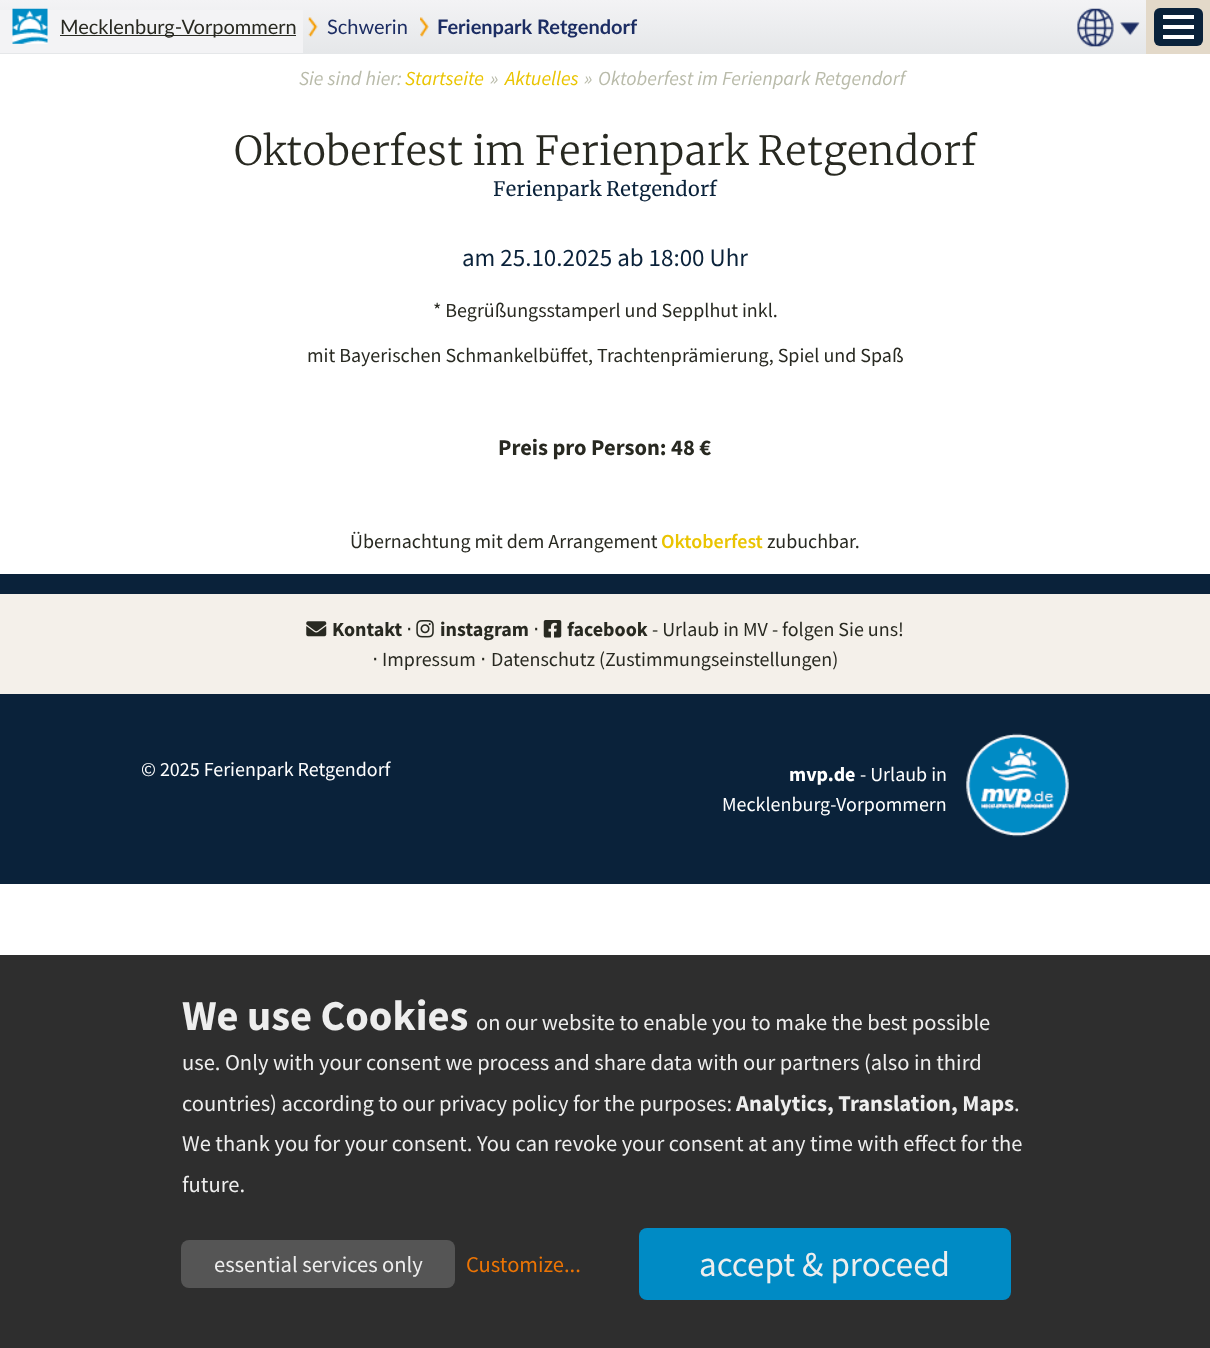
<svg xmlns="http://www.w3.org/2000/svg" width="1210" height="1348" viewBox="0 0 1210 1348">
  <style>
    .t1 { font: 20px Lato; fill: #282921; }
    .t2 { font: 20px Lato; fill: #1c2d63; }
    .t3 { font: bold 20px Lato; fill: #1c2d63; }
    .t4 { font: italic 20px Source Sans Pro; fill: #b9bbaa; }
    .t5 { font: italic 20px Source Sans Pro; fill: #eac401; }
    .t6 { font: 300 40px Merriweather; fill: #282921; }
    .t7 { font: 20px Merriweather; fill: #0a223a; }
    .t8 { font: 25px Source Sans Pro; fill: #0a223a; }
    .t9 { font: 20px Source Sans Pro; fill: #282921; }
    .t10 { font: bold 22.5px Source Sans Pro; fill: #282921; }
    .t11 { font: 600 20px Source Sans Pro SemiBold; fill: #eac401; }
    .t12 { font: bold 20px Source Sans Pro; fill: #282921; }
    .t13 { font: 20px DejaVu Sans; fill: #282921; }
    .t14 { font: 20px Source Sans Pro; fill: #fff; }
    .t15 { font: bold 20px Source Sans Pro; fill: #fff; }
    .t16 { font: bold 42.5px Source Sans Pro; fill: #eee; }
    .t17 { font: 22.5px Source Sans Pro; fill: #eee; }
    .t18 { font: bold 22.5px Source Sans Pro; fill: #eee; }
    .t19 { font: 22.5px Source Sans Pro; fill: #ec7404; }
    .t20 { font: 35px Source Sans Pro; fill: #eee; }
  </style>
  <defs>
    <linearGradient id="g1" gradientUnits="userSpaceOnUse" x1="605" y1="0" x2="605" y2="54"><stop offset="0" stop-color="#f3f3f5"/><stop offset="1" stop-color="#e5e7e9"/></linearGradient>
  </defs>
  <rect width="100%" height="100%" fill="#fff"/>
  <rect x="0" y="0" width="1146" height="54" fill="url(#g1)"/>
  <rect x="0" y="10" width="303" height="43" fill="#f3f3f5"/>
  <image x="12" y="8" width="36" height="36" href="images/1.png"/>
  <rect x="60" y="35" width="236" height="1" fill="#282921"/>
  <text x="60" y="34" class="t1">Mecklenburg-Vorpommern</text>
  <image x="308" y="17" width="10" height="20" href="images/2.png"/>
  <text x="327" y="34" class="t2">Schwerin</text>
  <image x="420" y="17" width="9" height="20" href="images/3.png"/>
  <text x="437" y="34" class="t3">Ferienpark Retgendorf</text>
  <image x="1077" y="8" width="63" height="39" href="images/4.png"/>
  <rect x="1146" y="0" width="64" height="54" fill="#e3d9c9"/>
  <rect x="1154" y="8" width="49" height="38" rx="6" fill="#0a223a"/>
  <rect x="1163" y="25" width="31" height="4" fill="#fff"/>
  <rect x="1163" y="15" width="31" height="4" fill="#fff"/>
  <rect x="1163" y="35" width="31" height="4" fill="#fff"/>
  <text x="299" y="85" class="t4">Sie sind hier:</text>
  <text x="405" y="85" class="t5">Startseite</text>
  <text x="490" y="85" class="t4">»</text>
  <text x="505" y="85" class="t5">Aktuelles</text>
  <text x="584" y="85" class="t4">»</text>
  <text x="598" y="85" class="t4">Oktoberfest im Ferienpark Retgendorf</text>
  <text x="234" y="165" class="t6">Oktoberfest im Ferienpark Retgendorf</text>
  <text x="493" y="196" class="t7">Ferienpark Retgendorf</text>
  <text x="462" y="266" class="t8">am 25.10.2025 ab 18:00 Uhr</text>
  <text x="433" y="317" class="t9">* Begrüßungsstamperl und Sepplhut inkl.</text>
  <text x="307" y="362" class="t9">mit Bayerischen Schmankelbüffet, Trachtenprämierung, Spiel und Spaß</text>
  <text x="498" y="455" class="t10">Preis pro Person: 48 €</text>
  <text x="350" y="548" class="t9">Übernachtung mit dem Arrangement</text>
  <text x="661" y="548" class="t11">Oktoberfest</text>
  <text x="767" y="548" class="t9">zubuchbar.</text>
  <rect x="0" y="574" width="1210" height="310" fill="#0a223a"/>
  <rect x="0" y="594" width="1210" height="100" fill="#f4f0ea"/>
  <image x="306" y="621" width="21" height="16" href="images/5.png"/>
  <text x="332" y="636" class="t12">Kontakt</text>
  <text x="406" y="636" class="t13">⋅</text>
  <image x="416" y="620" width="18" height="18" href="images/6.png"/>
  <text x="440" y="636" class="t12">instagram</text>
  <text x="533" y="636" class="t13">⋅</text>
  <image x="543" y="620" width="19" height="18" href="images/7.png"/>
  <text x="567" y="636" class="t12">facebook</text>
  <text x="652" y="636" class="t9">- Urlaub in MV - folgen Sie uns!</text>
  <text x="372" y="666" class="t13">⋅</text>
  <text x="382" y="666" class="t9">Impressum</text>
  <text x="480" y="666" class="t13">⋅</text>
  <text x="491" y="666" class="t9">Datenschutz (Zustimmungseinstellungen)</text>
  <text x="141" y="776" class="t14">© 2025 Ferienpark Retgendorf</text>
  <text x="789" y="781" class="t15">mvp.de</text>
  <text x="860" y="781" class="t14">- Urlaub in</text>
  <text x="722" y="811" class="t14">Mecklenburg-Vorpommern</text>
  <image x="966" y="733" width="103" height="104" href="images/8.png"/>
  <rect x="0" y="955" width="1210" height="393" fill="#2e2e2e"/>
  <text x="182" y="1030" class="t16">We use Cookies</text>
  <text x="476" y="1030" class="t17">on our website to enable you to make the best possible</text>
  <text x="182" y="1070" class="t17">use. Only with your consent we process and share data with our partners (also in third</text>
  <text x="182" y="1111" class="t17">countries) according to our privacy policy for the purposes:</text>
  <text x="736" y="1111" class="t18">Analytics, Translation, Maps</text>
  <text x="1014" y="1111" class="t17">.</text>
  <text x="182" y="1151" class="t17">We thank you for your consent. You can revoke your consent at any time with effect for the</text>
  <text x="182" y="1192" class="t17">future.</text>
  <rect x="181" y="1240" width="274" height="48" rx="8" fill="#555"/>
  <text x="214" y="1272" class="t17">essential services only</text>
  <text x="466" y="1272" class="t19">Customize...</text>
  <rect x="639" y="1228" width="372" height="72" rx="8" fill="#008bc5"/>
  <text x="699" y="1276" class="t20">accept &amp; proceed</text>
</svg>
